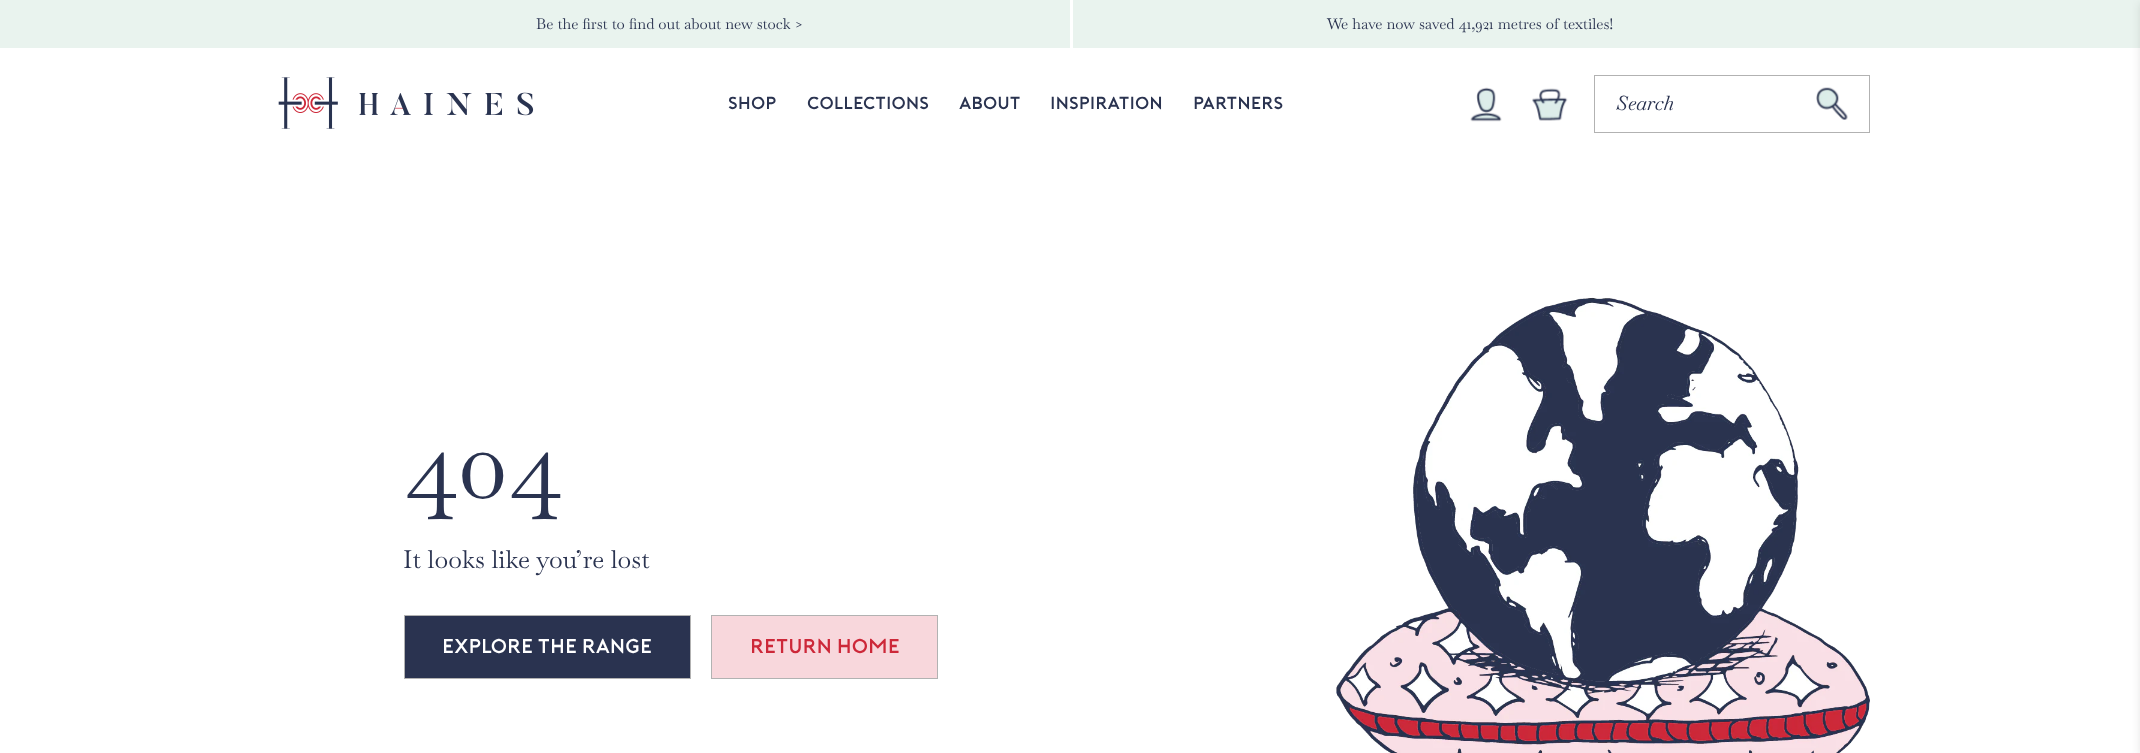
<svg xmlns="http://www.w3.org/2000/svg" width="2140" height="753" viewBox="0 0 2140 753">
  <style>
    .t1 { font: 15px Baskervville; fill: #2a3350; }
    .t2 { font: 500 17.5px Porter; fill: #2a3350; }
    .t3 { font: italic 20px Baskervville; fill: #2a3350; }
    .t4 { font: 100px Baskervville; fill: #2a3350; }
    .t5 { font: 25px Baskervville; fill: #2a3350; }
    .t6 { font: 500 20px Porter; fill: #fff; }
    .t7 { font: 500 20px Porter; fill: #cd2839; }
  </style>
  <rect width="100%" height="100%" fill="#fff"/>
  <rect x="0" y="0" width="2140" height="48" fill="#e9f3ee"/>
  <rect x="1070" y="0" width="3" height="48" fill="#fff"/>
  <text x="536" y="29" class="t1">Be the first to find out about new stock &gt;</text>
  <text x="1327" y="29" class="t1">We have now saved 41,921 metres of textiles!</text>
  <rect x="2140" y="3" width="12" height="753" fill="#0000001a" filter="blur(4px)"/>
  <image x="278" y="77" width="256" height="52" href="images/1.png"/>
  <text x="728" y="109" class="t2">SHOP</text>
  <text x="807" y="109" class="t2">COLLECTIONS</text>
  <text x="959" y="109" class="t2">ABOUT</text>
  <text x="1050" y="109" class="t2">INSPIRATION</text>
  <text x="1193" y="109" class="t2">PARTNERS</text>
  <image x="1470" y="87" width="32" height="35" href="images/2.png"/>
  <image x="1532" y="88" width="36" height="33" href="images/3.png"/>
  <rect x="1594.5" y="75.5" width="275" height="57" fill="none" stroke="#b2b2b2"/>
  <text x="1616" y="110" class="t3">Search</text>
  <image x="1816" y="87" width="32" height="33" href="images/4.png"/>
  <text x="403" y="498" class="t4">404</text>
  <text x="403" y="568" class="t5">It looks like you’re lost</text>
  <rect x="404.5" y="615.5" width="286" height="63" fill="#2a3350" stroke="#b2b2b2"/>
  <text x="442" y="653" class="t6">Explore the range</text>
  <rect x="711.5" y="615.5" width="226" height="63" fill="#f8d7dc" stroke="#b2b2b2"/>
  <text x="750" y="653" class="t7">Return home</text>
  <image x="1336" y="297" width="534" height="456" href="images/5.png"/>
</svg>
